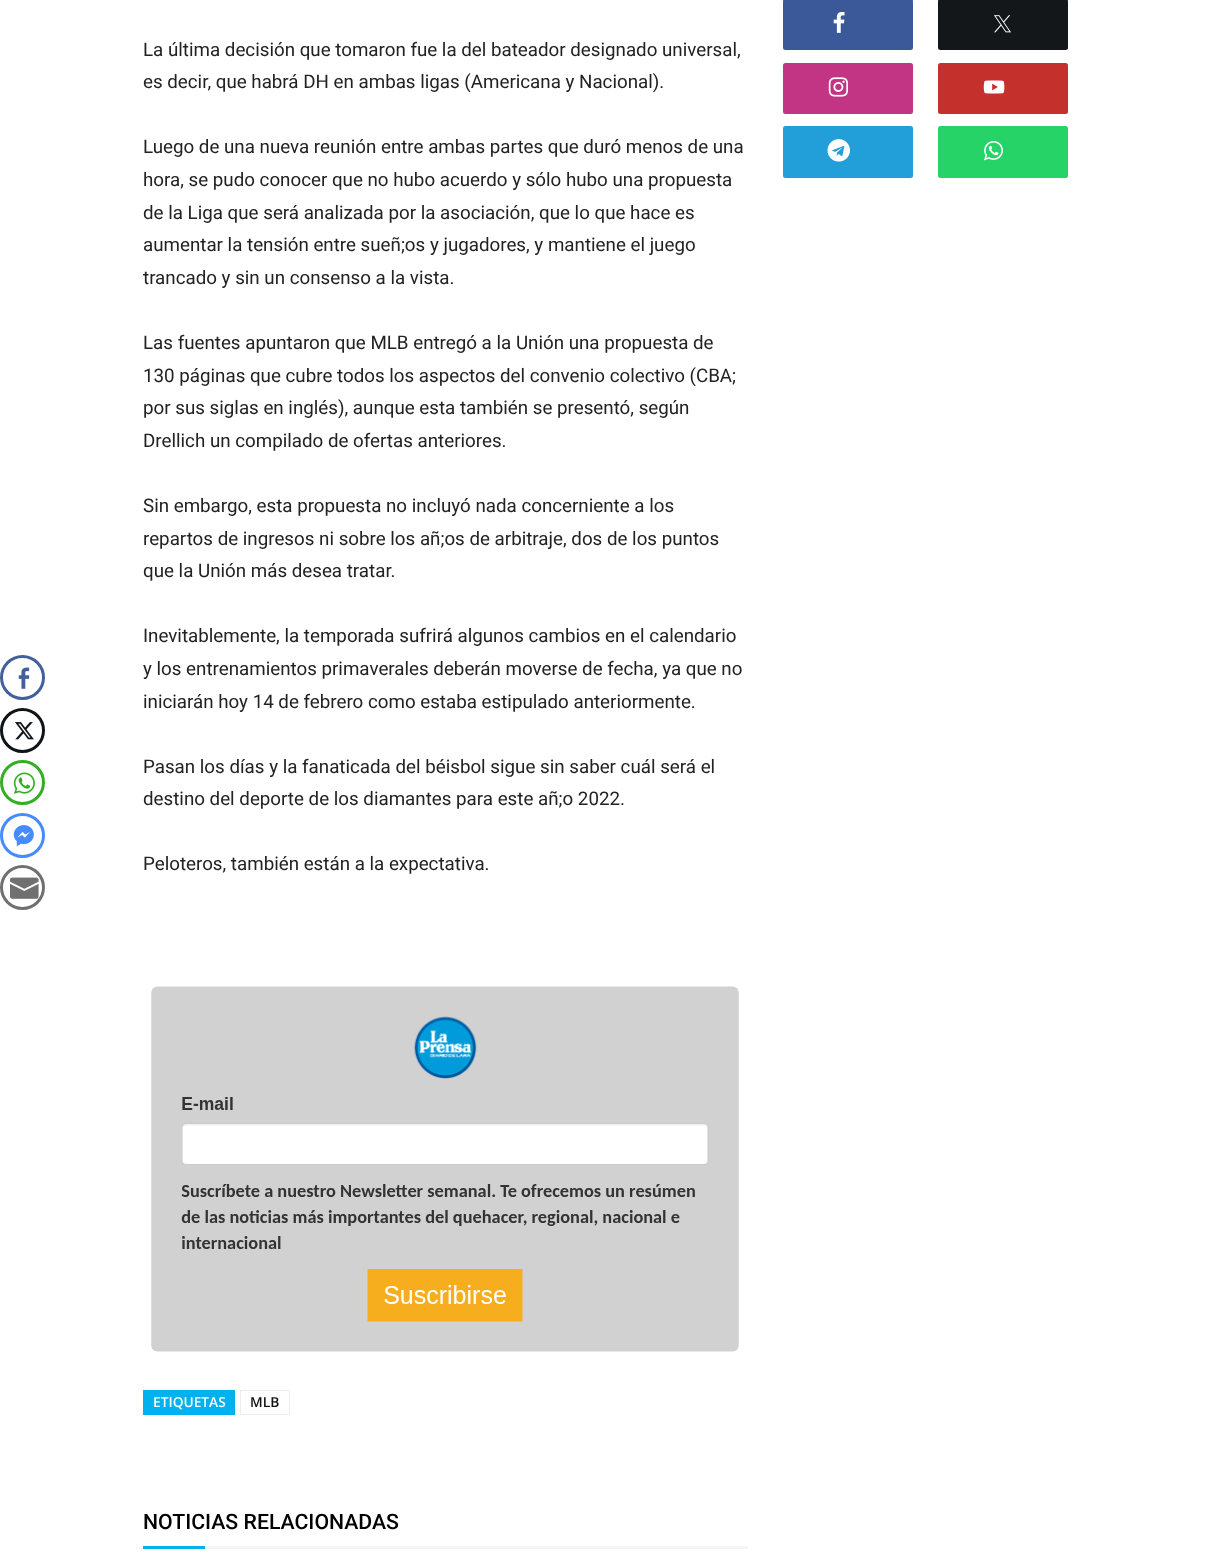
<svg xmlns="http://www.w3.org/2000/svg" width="1210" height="1564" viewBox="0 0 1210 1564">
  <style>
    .t1 { font: 18.75px Roboto; fill: #222; }
    .t2 { font: 600 13.75px Open Sans; fill: #fff; }
    .t3 { font: 600 13.75px Open Sans; fill: #111; }
    .t4 { font: 500 21.25px Roboto; fill: #000; }
  </style>
  <rect width="100%" height="100%" fill="#fff"/>
  <circle cx="22.5" cy="677.5" r="21" fill="none" stroke="#43609c" stroke-width="3"/>
  <image x="18" y="667" width="12" height="22" href="images/1.png"/>
  <circle cx="22.5" cy="730.5" r="21" fill="none" stroke="#0f1419" stroke-width="3"/>
  <image x="15" y="722" width="19" height="18" href="images/2.png"/>
  <circle cx="22.5" cy="782.5" r="21" fill="none" stroke="#34af23" stroke-width="3"/>
  <image x="13" y="772" width="22" height="22" href="images/3.png"/>
  <circle cx="22.5" cy="835.5" r="21" fill="none" stroke="#468bff" stroke-width="3"/>
  <image x="13" y="825" width="21" height="22" href="images/4.png"/>
  <circle cx="22.5" cy="887.5" r="21" fill="none" stroke="#717070" stroke-width="3"/>
  <image x="10" y="877" width="29" height="22" href="images/5.png"/>
  <text x="143" y="56" class="t1">La última decisión que tomaron fue la del bateador designado universal,</text>
  <text x="143" y="88" class="t1">es decir, que habrá DH en ambas ligas (Americana y Nacional).</text>
  <text x="143" y="153" class="t1">Luego de una nueva reunión entre ambas partes que duró menos de una</text>
  <text x="143" y="186" class="t1">hora, se pudo conocer que no hubo acuerdo y sólo hubo una propuesta</text>
  <text x="143" y="219" class="t1">de la Liga que será analizada por la asociación, que lo que hace es</text>
  <text x="143" y="251" class="t1">aumentar la tensión entre sueñ;os y jugadores, y mantiene el juego</text>
  <text x="143" y="284" class="t1">trancado y sin un consenso a la vista.</text>
  <text x="143" y="349" class="t1">Las fuentes apuntaron que MLB entregó a la Unión una propuesta de</text>
  <text x="143" y="382" class="t1">130 páginas que cubre todos los aspectos del convenio colectivo (CBA;</text>
  <text x="143" y="414" class="t1">por sus siglas en inglés), aunque esta también se presentó, según</text>
  <text x="143" y="447" class="t1">Drellich un compilado de ofertas anteriores.</text>
  <text x="143" y="512" class="t1">Sin embargo, esta propuesta no incluyó nada concerniente a los</text>
  <text x="143" y="545" class="t1">repartos de ingresos ni sobre los añ;os de arbitraje, dos de los puntos</text>
  <text x="143" y="577" class="t1">que la Unión más desea tratar.</text>
  <text x="143" y="642" class="t1">Inevitablemente, la temporada sufrirá algunos cambios en el calendario</text>
  <text x="143" y="675" class="t1">y los entrenamientos primaverales deberán moverse de fecha, ya que no</text>
  <text x="143" y="708" class="t1">iniciarán hoy 14 de febrero como estaba estipulado anteriormente.</text>
  <text x="143" y="773" class="t1">Pasan los días y la fanaticada del béisbol sigue sin saber cuál será el</text>
  <text x="143" y="805" class="t1">destino del deporte de los diamantes para este añ;o 2022.</text>
  <text x="143" y="870" class="t1">Peloteros, también están a la expectativa.</text>
  <image x="151" y="986" width="588" height="366" href="images/6.png"/>
  <rect x="143" y="1390" width="92" height="25" fill="#00b1f0"/>
  <text x="153" y="1407" class="t2">ETIQUETAS</text>
  <rect x="240.5" y="1390.5" width="49" height="24" fill="none" stroke="#ededed"/>
  <text x="250" y="1407" class="t3">MLB</text>
  <text x="143" y="1529" class="t4">NOTICIAS RELACIONADAS</text>
  <rect x="143" y="1546" width="62" height="3" fill="#00b1f0"/>
  <rect x="205" y="1546" width="543" height="3" fill="#f5f5f5"/>
  <rect x="783" y="-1" width="130" height="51" rx="2.5" fill="#3b5998"/>
  <image x="833" y="12" width="12" height="21" href="images/7.png"/>
  <rect x="783" y="63" width="130" height="51" rx="2.5" fill="#c13584"/>
  <image x="828" y="77" width="21" height="20" href="images/8.png"/>
  <rect x="783" y="126" width="130" height="52" rx="2.5" fill="#229ed9"/>
  <image x="827" y="139" width="23" height="23" href="images/9.png"/>
  <rect x="938" y="-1" width="130" height="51" rx="2.5" fill="#14171a"/>
  <image x="994" y="15" width="17" height="18" href="images/10.png"/>
  <rect x="938" y="63" width="130" height="51" rx="2.5" fill="#c4302b"/>
  <image x="983" y="80" width="22" height="14" href="images/11.png"/>
  <rect x="938" y="126" width="130" height="52" rx="2.5" fill="#25d366"/>
  <image x="983" y="141" width="20" height="20" href="images/12.png"/>
</svg>
